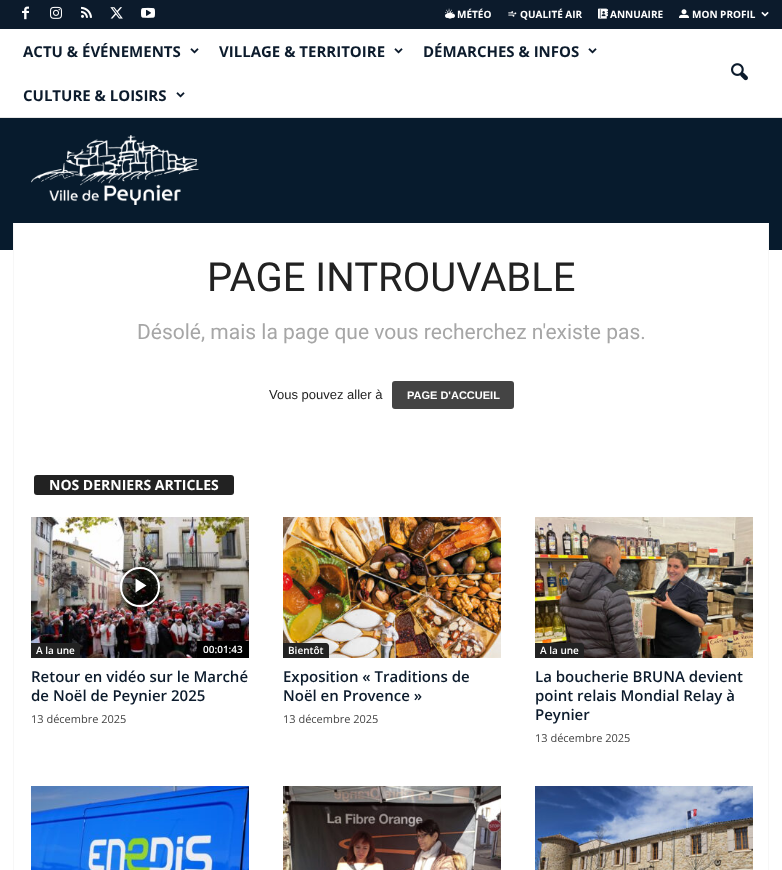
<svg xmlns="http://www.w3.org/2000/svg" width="782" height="870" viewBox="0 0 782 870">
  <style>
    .t1 { font: bold 10px Open Sans; fill: #fff; }
    .t2 { font: bold 15px Open Sans; fill: #0c1b2c; }
    .t3 { font: 40px Roboto; fill: #222; }
    .t4 { font: 21px Roboto; fill: #a6a6a6; }
    .t5 { font: 13px Liberation Sans; fill: #222; }
    .t6 { font: bold 11px Liberation Sans; fill: #fff; }
    .t7 { font: bold 14px Open Sans; fill: #fff; }
    .t8 { font: 600 10px Open Sans; fill: #fff; }
    .t9 { font: 600 15px Open Sans; fill: #0c1b2c; }
    .t10 { font: 11px Open Sans; fill: #444; }
  </style>
  <defs>
    <clipPath id="clip1"><path d="M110 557H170V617H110ZM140 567C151 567 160 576 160 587C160 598 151 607 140 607C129 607 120 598 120 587C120 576 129 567 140 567Z" clip-rule="evenodd"/></clipPath>
  </defs>
  <rect width="100%" height="100%" fill="#fff"/>
  <rect x="0" y="118" width="782" height="132" fill="#071b2d"/>
  <rect x="0" y="0" width="782" height="29" fill="#0c1b2c"/>
  <image x="22" y="6" width="7" height="14" href="images/1.png"/>
  <image x="50" y="6" width="12" height="13" href="images/2.png"/>
  <image x="81" y="6" width="11" height="12" href="images/3.png"/>
  <image x="110" y="7" width="13" height="12" href="images/4.png"/>
  <image x="141" y="7" width="14" height="11" href="images/5.png"/>
  <image x="445" y="8" width="10" height="11" href="images/6.png"/>
  <text x="457" y="18" class="t1">MÉTÉO</text>
  <image x="508" y="11" width="9" height="6" href="images/7.png"/>
  <text x="520" y="18" class="t1">QUALITÉ AIR</text>
  <image x="598" y="8" width="10" height="11" href="images/8.png"/>
  <text x="610" y="18" class="t1">ANNUAIRE</text>
  <image x="679" y="9" width="10" height="9" href="images/9.png"/>
  <text x="692" y="18" class="t1">MON PROFIL</text>
  <image x="761" y="11" width="8" height="6" href="images/10.png"/>
  <rect x="0" y="117" width="782" height="1" fill="#e6e6e6"/>
  <text x="23" y="57" class="t2">ACTU &amp; ÉVÉNEMENTS</text>
  <image x="190" y="48" width="9" height="6" href="images/11.png"/>
  <text x="219" y="57" class="t2">VILLAGE &amp; TERRITOIRE</text>
  <image x="394" y="48" width="9" height="6" href="images/11.png"/>
  <text x="423" y="57" class="t2">DÉMARCHES &amp; INFOS</text>
  <image x="588" y="48" width="9" height="6" href="images/11.png"/>
  <text x="23" y="101" class="t2">CULTURE &amp; LOISIRS</text>
  <image x="176" y="92" width="9" height="6" href="images/11.png"/>
  <image x="731" y="63" width="17" height="18" href="images/12.png"/>
  <image x="31" y="135" width="168" height="70" href="images/13.png"/>
  <rect x="14" y="223" width="754" height="27" fill="#fff"/>
  <rect x="13" y="223" width="1" height="647" fill="#f7f7f7"/>
  <text x="207" y="291" class="t3">PAGE INTROUVABLE</text>
  <text x="137" y="339" class="t4">Désolé, mais la page que vous recherchez n'existe pas.</text>
  <text x="269" y="399" class="t5">Vous pouvez aller à</text>
  <rect x="392" y="381" width="122" height="28" rx="3" fill="#444"/>
  <text x="407" y="399" class="t6">PAGE D'ACCUEIL</text>
  <rect x="34" y="475" width="200" height="20" rx="3" fill="#222"/>
  <text x="49" y="490" class="t7">NOS DERNIERS ARTICLES</text>
  <image x="31" y="517" width="218" height="141" href="images/14.png"/>
  <g clip-path="url(#clip1)">
    <rect x="120" y="567" width="40" height="40" rx="20" fill="#00000066" filter="blur(3px)"/>
  </g>
  <circle cx="140" cy="587" r="19" fill="#0000007a" stroke="#fff" stroke-width="2"/>
  <path d="M135.5 578.5V592.5L146.5 585.5Z" fill="#fff"/>
  <path d="M31 643H77C78.5 643 80 644.5 80 646V658H31Z" fill="#222"/>
  <text x="36" y="654" class="t8">A la une</text>
  <rect x="197" y="641" width="52" height="17" fill="#000"/>
  <text x="203" y="653" class="t8">00:01:43</text>
  <text x="31" y="682" class="t9">Retour en vidéo sur le Marché</text>
  <text x="31" y="701" class="t9">de Noël de Peynier 2025</text>
  <text x="31" y="723" class="t10">13 décembre 2025</text>
  <image x="283" y="517" width="218" height="141" href="images/15.png"/>
  <path d="M283 643H326C327.5 643 329 644.5 329 646V658H283Z" fill="#222"/>
  <text x="288" y="654" class="t8">Bientôt</text>
  <text x="283" y="682" class="t9">Exposition « Traditions de</text>
  <text x="283" y="701" class="t9">Noël en Provence »</text>
  <text x="283" y="723" class="t10">13 décembre 2025</text>
  <image x="535" y="517" width="218" height="141" href="images/16.png"/>
  <path d="M535 643H581C582.5 643 584 644.5 584 646V658H535Z" fill="#222"/>
  <text x="540" y="654" class="t8">A la une</text>
  <text x="535" y="682" class="t9">La boucherie BRUNA devient</text>
  <text x="535" y="701" class="t9">point relais Mondial Relay à</text>
  <text x="535" y="720" class="t9">Peynier</text>
  <text x="535" y="742" class="t10">13 décembre 2025</text>
  <image x="31" y="786" width="218" height="84" href="images/17.png"/>
  <image x="283" y="786" width="218" height="84" href="images/18.png"/>
  <image x="535" y="786" width="218" height="84" href="images/19.png"/>
  <rect x="768" y="223" width="1" height="647" fill="#f7f7f7"/>
</svg>
